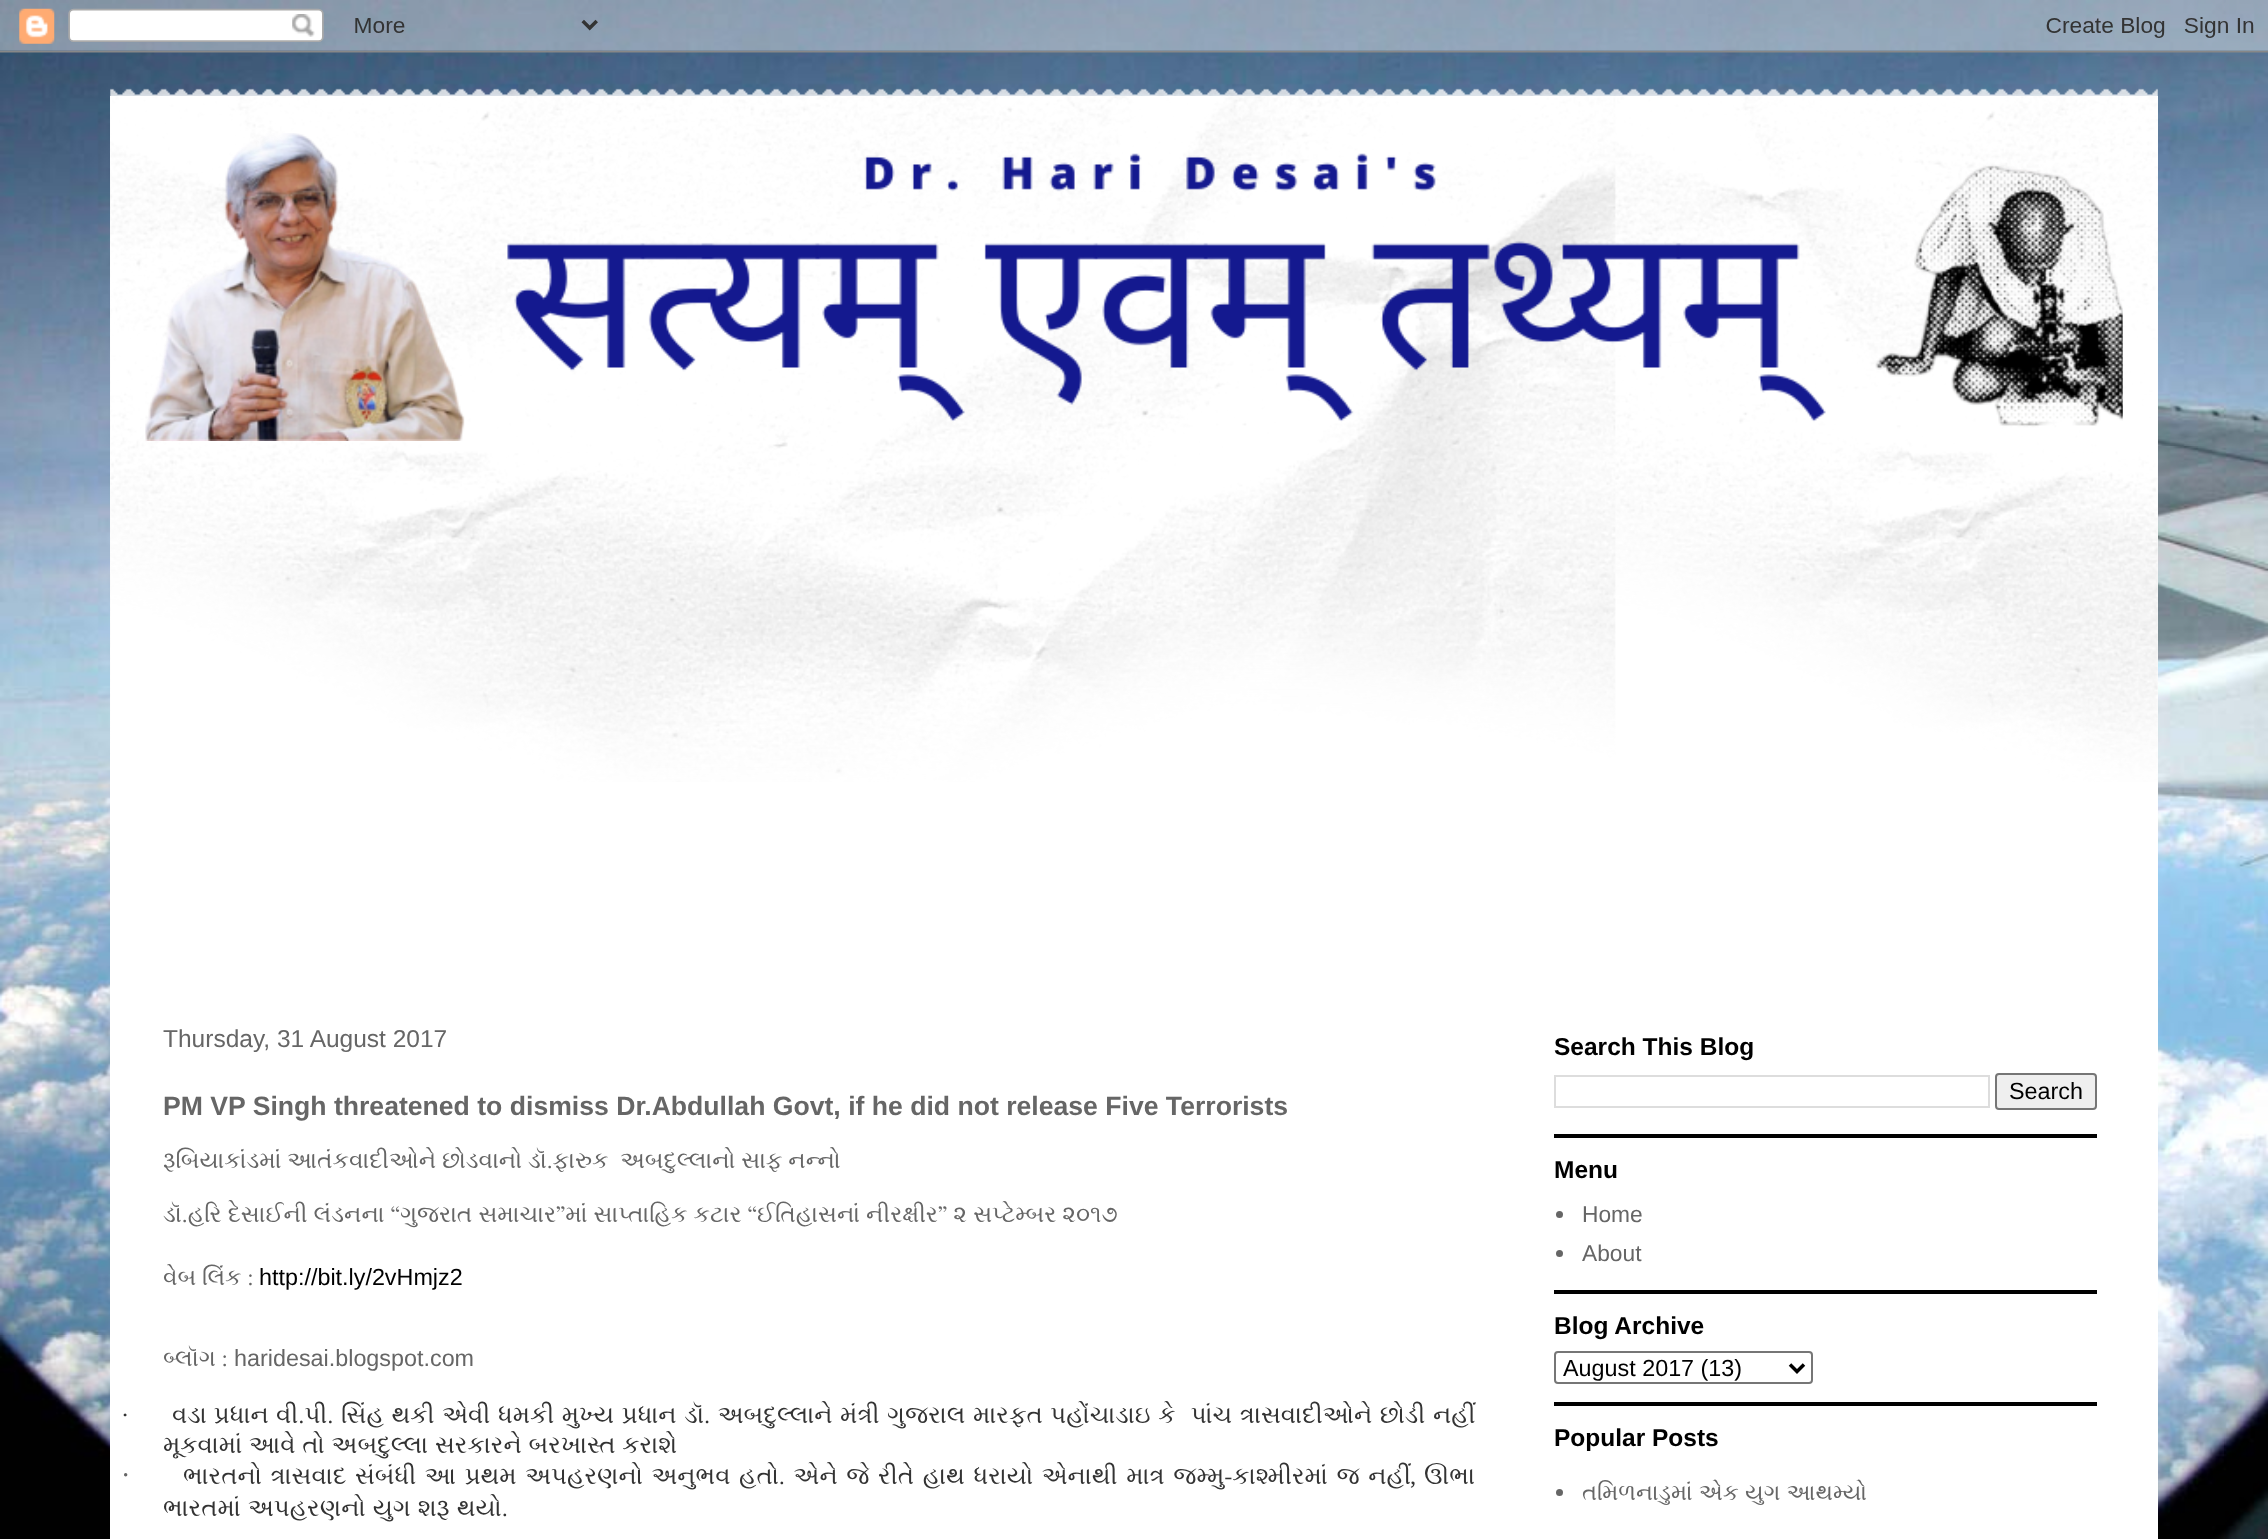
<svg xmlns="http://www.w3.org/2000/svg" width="2268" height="1539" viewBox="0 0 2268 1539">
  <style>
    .t1 { font: 24.5px Liberation Sans; fill: #666; }
    .t2 { font: bold 26.6px Liberation Sans; fill: #666; }
    .t3 { font: 23.35px FreeSerif; fill: #666; }
    .t4 { font: 23.35px Liberation Sans; fill: #000; }
    .t5 { font: 23.35px Liberation Sans; fill: #666; }
    .t6 { font: 24.5px Liberation Serif; fill: #333; }
    .t7 { font: 24.5px FreeSerif; fill: #333; }
    .t8 { font: 28px Liberation Serif; fill: #666; }
    .t9 { font: bold 24.5px Liberation Sans; fill: #000; }
    .t10 { font: 22.75px Liberation Sans; fill: #666; }
    .t11 { font: 22.75px FreeSerif; fill: #666; }
  </style>
  <rect width="100%" height="100%" fill="#fff"/>
  <image x="0" y="0" width="2268" height="1539" href="images/1.png"/>
  <image x="0" y="0" width="2268" height="53" href="images/2.png"/>
  <image x="110" y="88" width="2048" height="8" href="images/3.png"/>
  <rect x="110" y="96" width="2048" height="1443" fill="#fff"/>
  <image x="110" y="96" width="2048" height="686" href="images/4.png"/>
  <image x="145" y="133" width="1978" height="308" href="images/5.png"/>
  <text x="163" y="1047" class="t1">Thursday, 31 August 2017</text>
  <text x="163" y="1115" class="t2">PM VP Singh threatened to dismiss Dr.Abdullah Govt, if he did not release Five Terrorists</text>
  <text x="163" y="1168" class="t3" xml:space="preserve">રૂબિયાકાંડમાં આતંકવાદીઓને છોડવાનો ડૉ.ફારુક  અબદુલ્લાનો સાફ નન્નો</text>
  <text x="163" y="1222" word-spacing="0.25" class="t3">ડૉ.હરિ દેસાઈની લંડનના “ગુજરાત સમાચાર”માં સાપ્તાહિક કટાર “ઈતિહાસનાં નીરક્ષીર” ૨ સપ્ટેમ્બર ૨૦૧૭</text>
  <text x="163" y="1285" class="t3">વેબ લિંક :</text>
  <text x="259" y="1285" class="t4">http://bit.ly/2vHmjz2</text>
  <text x="163" y="1366" class="t3">બ્લૉગ :</text>
  <text x="234" y="1366" class="t5">haridesai.blogspot.com</text>
  <text x="121" y="1423" class="t6">·</text>
  <text x="172" y="1423" word-spacing="1" class="t7">વડા પ્રધાન</text>
  <text x="276" y="1423" word-spacing="1.5" class="t7" xml:space="preserve">વી.પી. સિંહ થકી એવી ધમકી મુખ્ય પ્રધાન ડૉ. અબદુલ્લાને મંત્રી ગુજરાલ મારફત પહોંચાડાઇ કે  પાંચ ત્રાસવાદીઓને છોડી નહીં</text>
  <text x="163" y="1453" word-spacing="0.75" class="t7">મૂકવામાં આવે તો અબદુલ્લા સરકારને બરખાસ્ત કરાશે</text>
  <text x="121" y="1484" class="t8">·</text>
  <text x="183" y="1484" word-spacing="2.5" class="t7">ભારતનો ત્રાસવાદ સંબંધી આ પ્રથમ અપહરણનો અનુભવ હતો. એને જે રીતે હાથ ધરાયો એનાથી માત્ર જમ્મુ-કાશ્મીરમાં જ નહીં</text>
  <text x="1424" y="1484" class="t7">ઊભા</text>
  <text x="1410" y="1484" class="t6">,</text>
  <text x="163" y="1516" word-spacing="1" class="t7">ભારતમાં અપહરણનો યુગ શરૂ થયો.</text>
  <rect x="1554" y="1134" width="543" height="4" fill="#000"/>
  <text x="1554" y="1055" class="t9">Search This Blog</text>
  <rect x="1555" y="1076" width="434" height="31" fill="none" stroke="#ddd" stroke-width="2"/>
  <rect x="1996" y="1074" width="100" height="35" rx="3" fill="#efefef" stroke="#767676" stroke-width="2"/>
  <text x="2009" y="1099" class="t4">Search</text>
  <rect x="1554" y="1290" width="543" height="4" fill="#000"/>
  <text x="1554" y="1178" class="t9">Menu</text>
  <circle cx="1559.5" cy="1214.5" r="3.5" fill="#666"/>
  <text x="1582" y="1222" class="t10">Home</text>
  <circle cx="1559.5" cy="1253.5" r="3.5" fill="#666"/>
  <text x="1582" y="1261" class="t10">About</text>
  <rect x="1554" y="1402" width="543" height="4" fill="#000"/>
  <text x="1554" y="1334" class="t9">Blog Archive</text>
  <rect x="1555" y="1352" width="257" height="31" rx="3" fill="none" stroke="#767676" stroke-width="2"/>
  <path d="M1790 1364.5L1797 1371.5L1804 1364.5" fill="none" stroke="#000" stroke-width="3.5"/>
  <text x="1563" y="1376" class="t4">August 2017 (13)</text>
  <text x="1554" y="1446" class="t9">Popular Posts</text>
  <circle cx="1559.5" cy="1492.5" r="3.5" fill="#666"/>
  <text x="1582" y="1500" word-spacing="0.5" class="t11">તમિળનાડુમાં એક યુગ આથમ્યો</text>
</svg>
